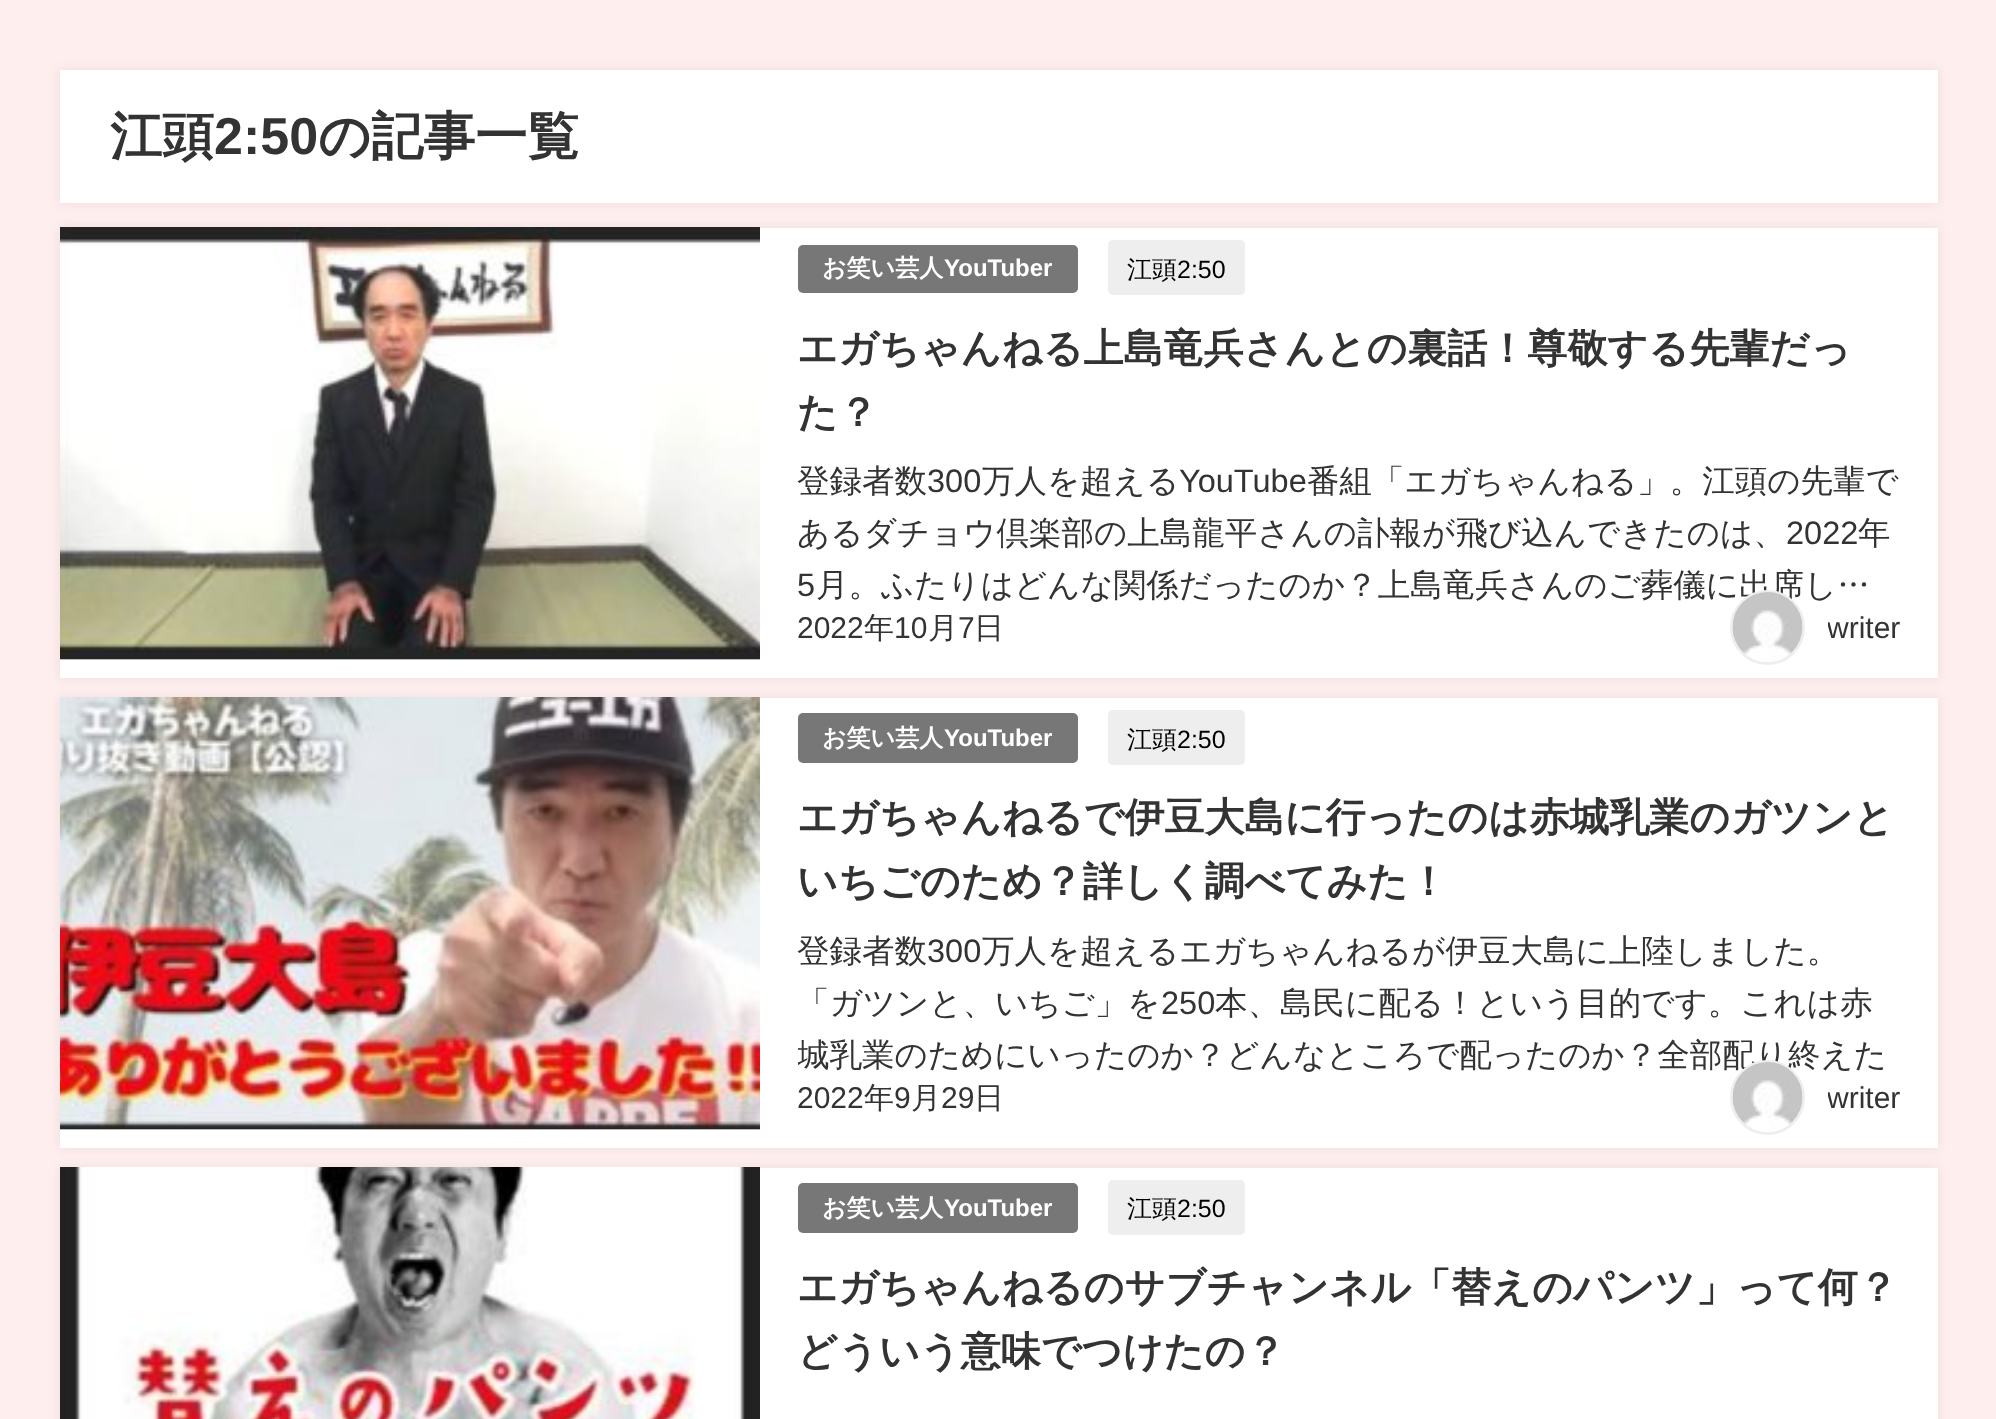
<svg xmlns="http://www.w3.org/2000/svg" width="1996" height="1419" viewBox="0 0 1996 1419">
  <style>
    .t1 { font: bold 52px WenQuanYi Zen Hei; fill: #333; }
    .t2 { font: bold 52px Liberation Sans; fill: #333; }
    .t3 { font: bold 24px WenQuanYi Zen Hei; fill: #fff; }
    .t4 { font: bold 24px Liberation Sans; fill: #fff; }
    .t5 { font: 500 25px WenQuanYi Zen Hei; fill: #000; }
    .t6 { font: 25px Liberation Sans; fill: #000; }
    .t7 { font: bold 40px WenQuanYi Zen Hei; fill: #333; }
    .t8 { font: 500 32.5px WenQuanYi Zen Hei; fill: #333; }
    .t9 { font: 32.5px Liberation Sans; fill: #333; }
    .t10 { font: 30px Liberation Sans; fill: #333; }
    .t11 { font: 500 30px WenQuanYi Zen Hei; fill: #333; }
  </style>
  <defs>
    <clipPath id="clip1"><rect x="1828" y="590" width="72" height="75"/></clipPath>
    <clipPath id="clip2"><rect x="798" y="928" width="1102" height="145"/></clipPath>
    <clipPath id="clip3"><rect x="1828" y="1060" width="72" height="75"/></clipPath>
  </defs>
  <rect width="100%" height="100%" fill="#fee"/>
  <rect x="60" y="70" width="1878" height="133" fill="#96969633" filter="blur(6px)"/>
  <rect x="60" y="70" width="1878" height="133" fill="#fff"/>
  <text x="110" y="154" class="t1">江頭</text>
  <text x="214" y="154" class="t2">2:50</text>
  <text x="318" y="154" class="t1">の記事一覧</text>
  <rect x="60" y="228" width="1878" height="450" fill="#96969633" filter="blur(6px)"/>
  <rect x="60" y="228" width="1878" height="450" fill="#fff"/>
  <rect x="60" y="659" width="700" height="1" fill="#eee"/>
  <image x="60" y="227" width="700" height="433" href="images/1.png"/>
  <rect x="798" y="245" width="280" height="48" rx="5" fill="#777"/>
  <text x="822" y="276" class="t3">お笑い芸人</text>
  <text x="944" y="276" class="t4">YouTuber</text>
  <rect x="1108" y="240" width="137" height="55" rx="5" fill="#eee"/>
  <text x="1127" y="278" class="t5">江頭</text>
  <text x="1177" y="278" class="t6">2:50</text>
  <text x="797" y="362" class="t7">エガちゃんねる上島竜兵さんとの裏話！尊敬する先輩だっ</text>
  <text x="797" y="426" class="t7">た？</text>
  <text x="797" y="492" class="t8">登録者数</text>
  <text x="927" y="492" class="t9">300</text>
  <text x="982" y="492" class="t8">万人を超える</text>
  <text x="1179" y="492" class="t9">YouTube</text>
  <text x="1307" y="492" class="t8">番組「エガちゃんねる」。江頭の先輩で</text>
  <text x="797" y="544" class="t8">あるダチョウ倶楽部の上島龍平さんの訃報が飛び込んできたのは、</text>
  <text x="1786" y="544" class="t9">2022</text>
  <text x="1858" y="544" class="t8">年</text>
  <text x="797" y="596" class="t9">5</text>
  <text x="816" y="596" class="t8">月。ふたりはどんな関係だったのか？上島竜兵さんのご葬儀に出席し…</text>
  <text x="797" y="638" class="t10">2022</text>
  <text x="864" y="638" class="t11">年</text>
  <text x="894" y="638" class="t10">10</text>
  <text x="928" y="638" class="t11">月</text>
  <text x="958" y="638" class="t10">7</text>
  <text x="974" y="638" class="t11">日</text>
  <circle cx="1767.5" cy="627.5" r="36" fill="none" stroke="#eee" stroke-width="3"/>
  <image x="1732" y="592" width="71" height="70" href="images/2.png"/>
  <g clip-path="url(#clip1)">
    <text x="1827" y="638" class="t10">writer</text>
  </g>
  <rect x="60" y="698" width="1878" height="450" fill="#96969633" filter="blur(6px)"/>
  <rect x="60" y="698" width="1878" height="450" fill="#fff"/>
  <rect x="60" y="1129" width="700" height="1" fill="#eee"/>
  <image x="60" y="697" width="700" height="433" href="images/3.png"/>
  <rect x="798" y="713" width="280" height="50" rx="5" fill="#777"/>
  <text x="822" y="746" class="t3">お笑い芸人</text>
  <text x="944" y="746" class="t4">YouTuber</text>
  <rect x="1108" y="710" width="137" height="55" rx="5" fill="#eee"/>
  <text x="1127" y="748" class="t5">江頭</text>
  <text x="1177" y="748" class="t6">2:50</text>
  <text x="797" y="831" class="t7">エガちゃんねるで伊豆大島に行ったのは赤城乳業のガツンと</text>
  <text x="797" y="895" class="t7">いちごのため？詳しく調べてみた！</text>
  <text x="797" y="962" class="t8">登録者数</text>
  <text x="927" y="962" class="t9">300</text>
  <text x="982" y="962" class="t8">万人を超えるエガちゃんねるが伊豆大島に上陸しました。</text>
  <text x="797" y="1014" class="t8">「ガツンと、いちご」を</text>
  <text x="1161" y="1014" class="t9">250</text>
  <text x="1215" y="1014" class="t8">本、島民に配る！という目的です。これは赤</text>
  <g clip-path="url(#clip2)">
    <text x="797" y="1066" class="t8">城乳業のためにいったのか？どんなところで配ったのか？全部配り終えた</text>
  </g>
  <text x="797" y="1108" class="t10">2022</text>
  <text x="864" y="1108" class="t11">年</text>
  <text x="894" y="1108" class="t10">9</text>
  <text x="911" y="1108" class="t11">月</text>
  <text x="941" y="1108" class="t10">29</text>
  <text x="974" y="1108" class="t11">日</text>
  <circle cx="1767.5" cy="1097.5" r="36" fill="none" stroke="#eee" stroke-width="3"/>
  <image x="1732" y="1062" width="71" height="70" href="images/4.png"/>
  <g clip-path="url(#clip3)">
    <text x="1827" y="1108" class="t10">writer</text>
  </g>
  <rect x="60" y="1168" width="1878" height="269" fill="#96969633" filter="blur(6px)"/>
  <rect x="760" y="1168" width="1178" height="251" fill="#fff"/>
  <image x="60" y="1167" width="700" height="252" href="images/5.png"/>
  <rect x="798" y="1183" width="280" height="50" rx="5" fill="#777"/>
  <text x="822" y="1216" class="t3">お笑い芸人</text>
  <text x="944" y="1216" class="t4">YouTuber</text>
  <rect x="1108" y="1180" width="137" height="55" rx="5" fill="#eee"/>
  <text x="1127" y="1217" class="t5">江頭</text>
  <text x="1177" y="1217" class="t6">2:50</text>
  <text x="797" y="1301" class="t7">エガちゃんねるのサブチャンネル「替えのパンツ」って何？</text>
  <text x="797" y="1365" class="t7">どういう意味でつけたの？</text>
</svg>
